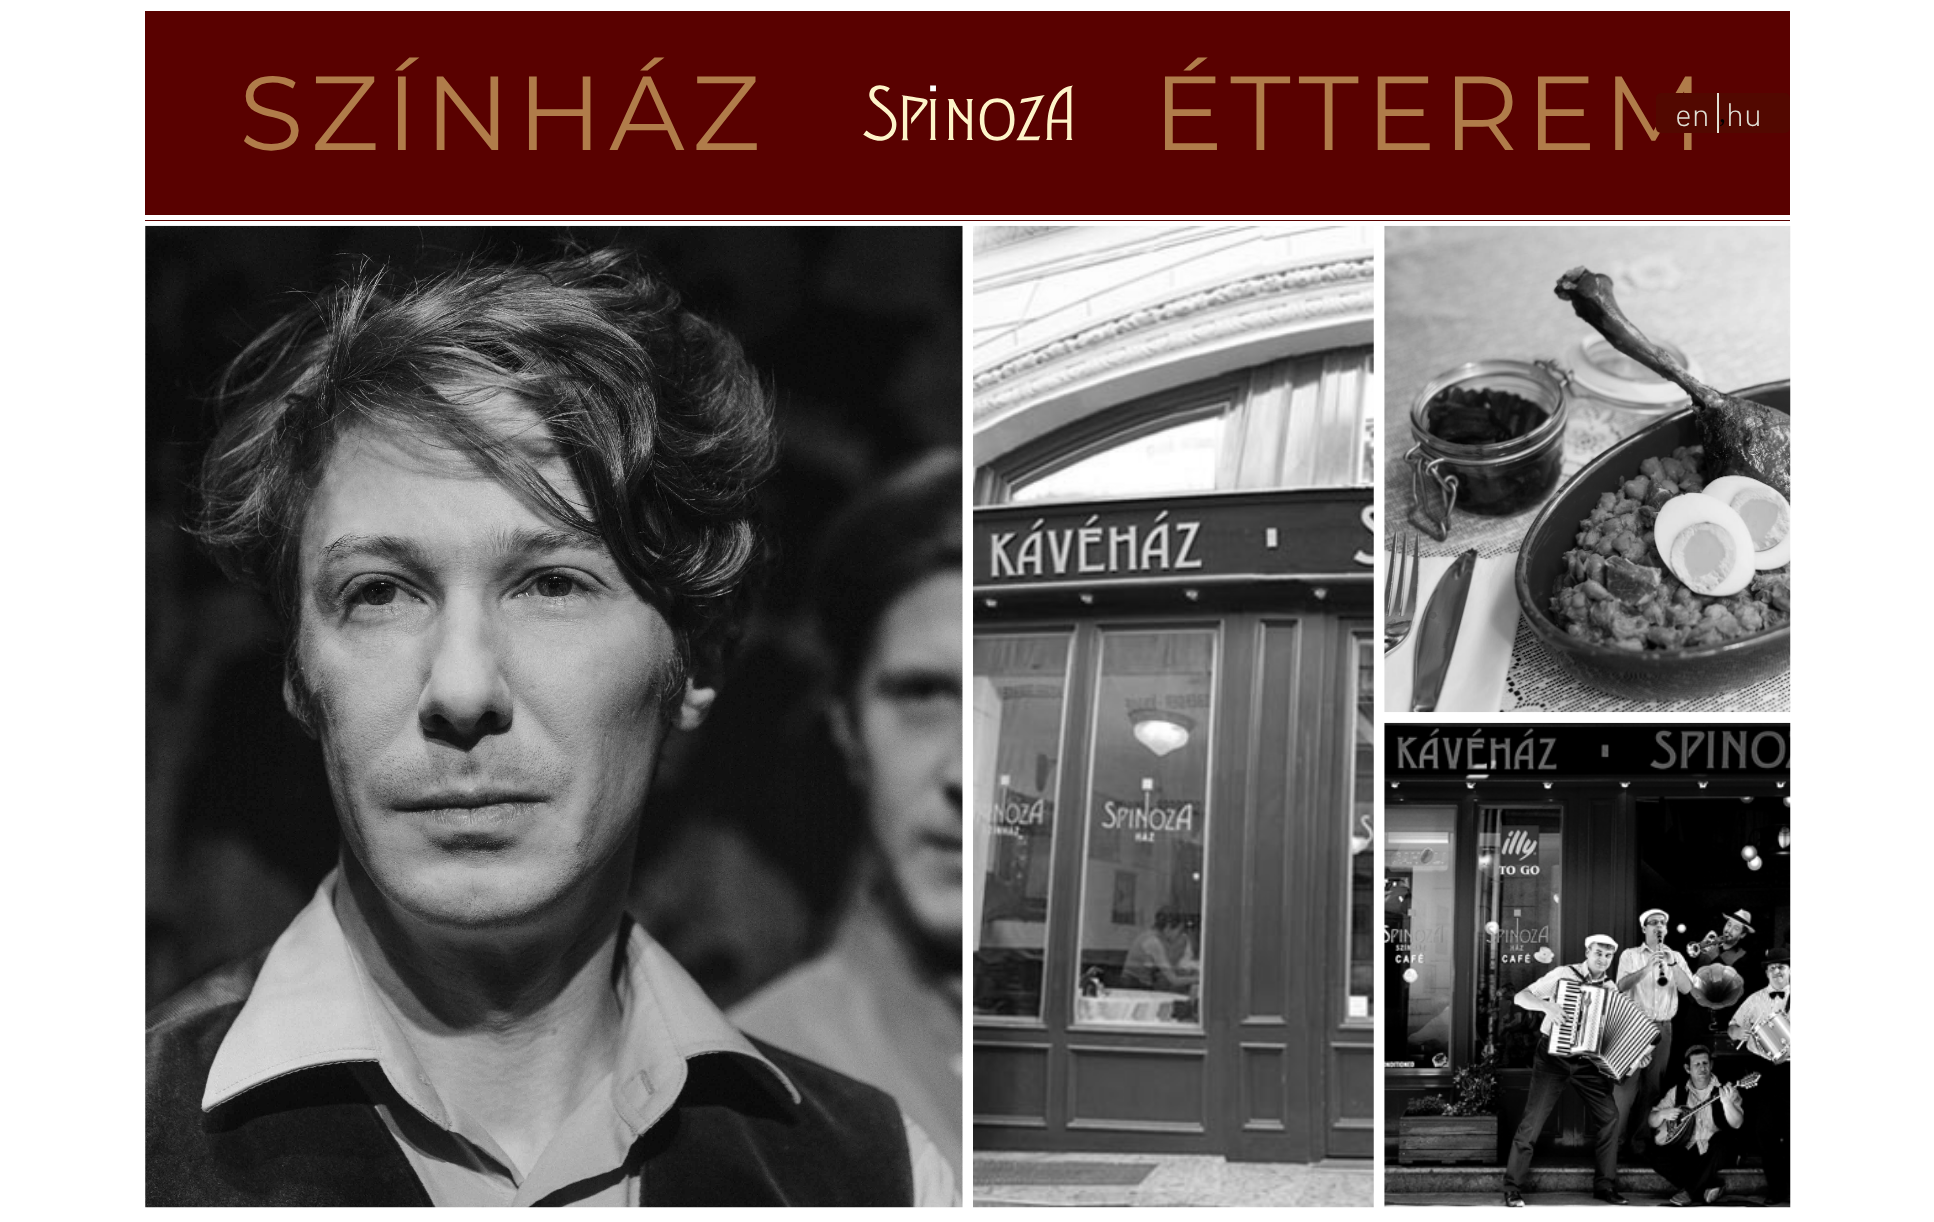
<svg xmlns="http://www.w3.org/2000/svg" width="1934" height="1222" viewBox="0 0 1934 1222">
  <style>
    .t1 { font: 105px Montserrat; letter-spacing: 7px; fill: #b07c4a; }
    .t2 { font: 300 32px DIN; fill: #e0e0d4; }
    .t3 { font: 28px Liberation Serif; fill: #000; }
  </style>
  <rect width="100%" height="100%" fill="#fff"/>
  <rect x="145" y="11" width="1645" height="210" fill="#590100"/>
  <rect x="145" y="215" width="1645" height="5" fill="#fff"/>
  <text x="239" y="150" class="t1">SZÍNHÁZ</text>
  <image x="863" y="85" width="210" height="56" href="images/1.png"/>
  <text x="1153" y="150" class="t1">ÉTTEREM</text>
  <rect x="1656" y="93" width="134" height="40" rx="5" fill="#520800"/>
  <rect x="1717" y="93" width="2" height="40" fill="#e0e0d4"/>
  <text x="1675" y="126" class="t2">en</text>
  <text x="1719" y="122" class="t3">,</text>
  <text x="1726" y="126" class="t2">hu</text>
  <image x="145" y="225" width="818" height="983" href="images/2.png"/>
  <image x="973" y="225" width="401" height="983" href="images/3.png"/>
  <image x="1384" y="225" width="407" height="488" href="images/4.png"/>
  <image x="1384" y="722" width="407" height="486" href="images/5.png"/>
</svg>
